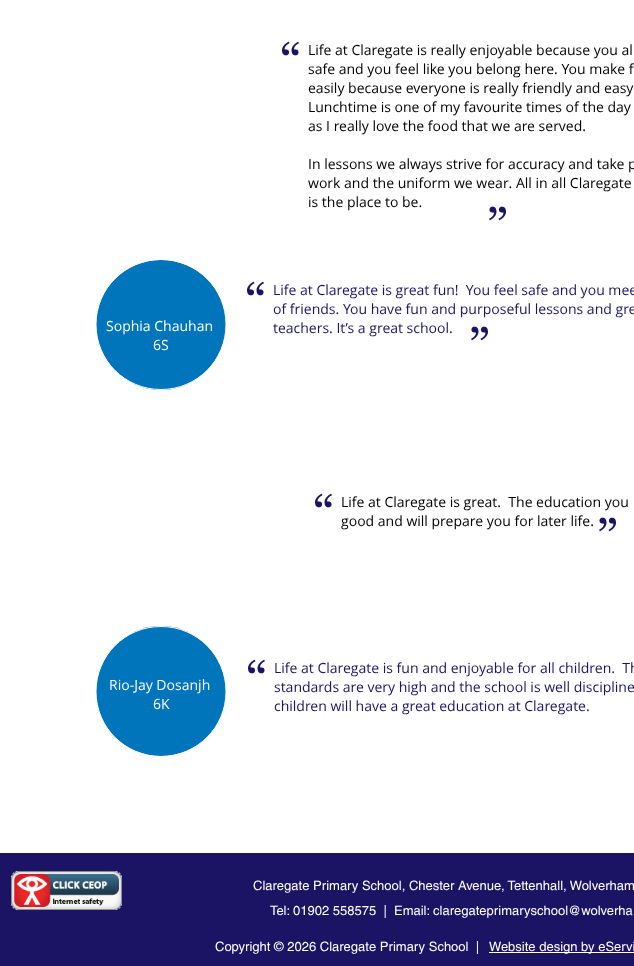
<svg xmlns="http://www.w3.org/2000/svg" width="634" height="966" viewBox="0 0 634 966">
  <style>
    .t1 { font: 14px Open Sans; fill: #000; }
    .t2 { font: 14px Open Sans; fill: #1b1464; }
    .t3 { font: 14px Open Sans; fill: #fff; }
    .t4 { font: 13px helvetica; fill: #fff; }
  </style>
  <rect width="100%" height="100%" fill="#fff"/>
  <image x="282" y="41" width="17" height="15" href="images/1.png"/>
  <text x="308" y="55" class="t1">Life at Claregate is really enjoyable because you al</text>
  <text x="308" y="74" class="t1">safe and you feel like you belong here. You make f</text>
  <text x="308" y="93" class="t1">easily because everyone is really friendly and easy</text>
  <text x="308" y="112" class="t1">Lunchtime is one of my favourite times of the day</text>
  <text x="308" y="131" class="t1">as I really love the food that we are served.</text>
  <text x="308" y="169" class="t1">In lessons we always strive for accuracy and take p</text>
  <text x="308" y="188" class="t1">work and the uniform we wear. All in all Claregate</text>
  <text x="308" y="207" class="t1">is the place to be.</text>
  <image x="489" y="206" width="17" height="15" href="images/2.png"/>
  <path d="M226 324C226 360 197 390 161 390C125 390 96 360 96 324C96 289 125 260 161 260C197 260 226 289 226 324Z" fill="#0075bc"/>
  <path d="M226 324.5C226 360.5 197 389.5 161 389.5C125 389.5 96 360.5 96 324.5C96 288.5 125 259.5 161 259.5C197 259.5 226 288.5 226 324.5Z" fill="none" stroke="#fff"/>
  <image x="247" y="281" width="17" height="15" href="images/1.png"/>
  <text x="273" y="295" class="t2" xml:space="preserve">Life at Claregate is great fun!  You feel safe and you mee</text>
  <text x="273" y="314" class="t2">of friends. You have fun and purposeful lessons and gre</text>
  <text x="273" y="333" class="t2">teachers. It’s a great school.</text>
  <text x="106" y="331" class="t3">Sophia Chauhan</text>
  <text x="153" y="350" class="t3">6S</text>
  <image x="471" y="326" width="17" height="15" href="images/2.png"/>
  <image x="315" y="493" width="17" height="15" href="images/1.png"/>
  <text x="341" y="507" class="t1" xml:space="preserve">Life at Claregate is great.  The education you</text>
  <text x="341" y="526" class="t1">good and will prepare you for later life.</text>
  <image x="599" y="517" width="17" height="15" href="images/2.png"/>
  <path d="M226 692C226 727 197 756 161 756C125 756 96 727 96 692C96 656 125 626 161 626C197 626 226 656 226 692Z" fill="#0075bc"/>
  <path d="M226 691.5C226 727.5 197 756.5 161 756.5C125 756.5 96 727.5 96 691.5C96 655.5 125 626.5 161 626.5C197 626.5 226 655.5 226 691.5Z" fill="none" stroke="#fff"/>
  <image x="248" y="659" width="17" height="15" href="images/1.png"/>
  <text x="274" y="673" class="t2" xml:space="preserve">Life at Claregate is fun and enjoyable for all children.  Th</text>
  <text x="274" y="692" class="t2">standards are very high and the school is well discipline</text>
  <text x="274" y="711" class="t2">children will have a great education at Claregate.</text>
  <text x="109" y="690" class="t3">Rio-Jay Dosanjh</text>
  <text x="153" y="709" class="t3">6K</text>
  <rect x="0" y="853" width="634" height="113" fill="#1b1464"/>
  <image x="11" y="871" width="111" height="39" href="images/3.png"/>
  <text x="253" y="890" class="t4">Claregate Primary School, Chester Avenue, Tettenhall, Wolverham</text>
  <text x="270" y="915" class="t4" xml:space="preserve">Tel: 01902 558575  |</text>
  <text x="394" y="915" class="t4">Email: claregateprimaryschool@wolverha</text>
  <text x="215" y="951" class="t4" xml:space="preserve">Copyright © 2026 Claregate Primary School  |</text>
  <rect x="489" y="952" width="145" height="1" fill="#fff"/>
  <text x="489" y="951" class="t4">Website design by eServi</text>
</svg>
